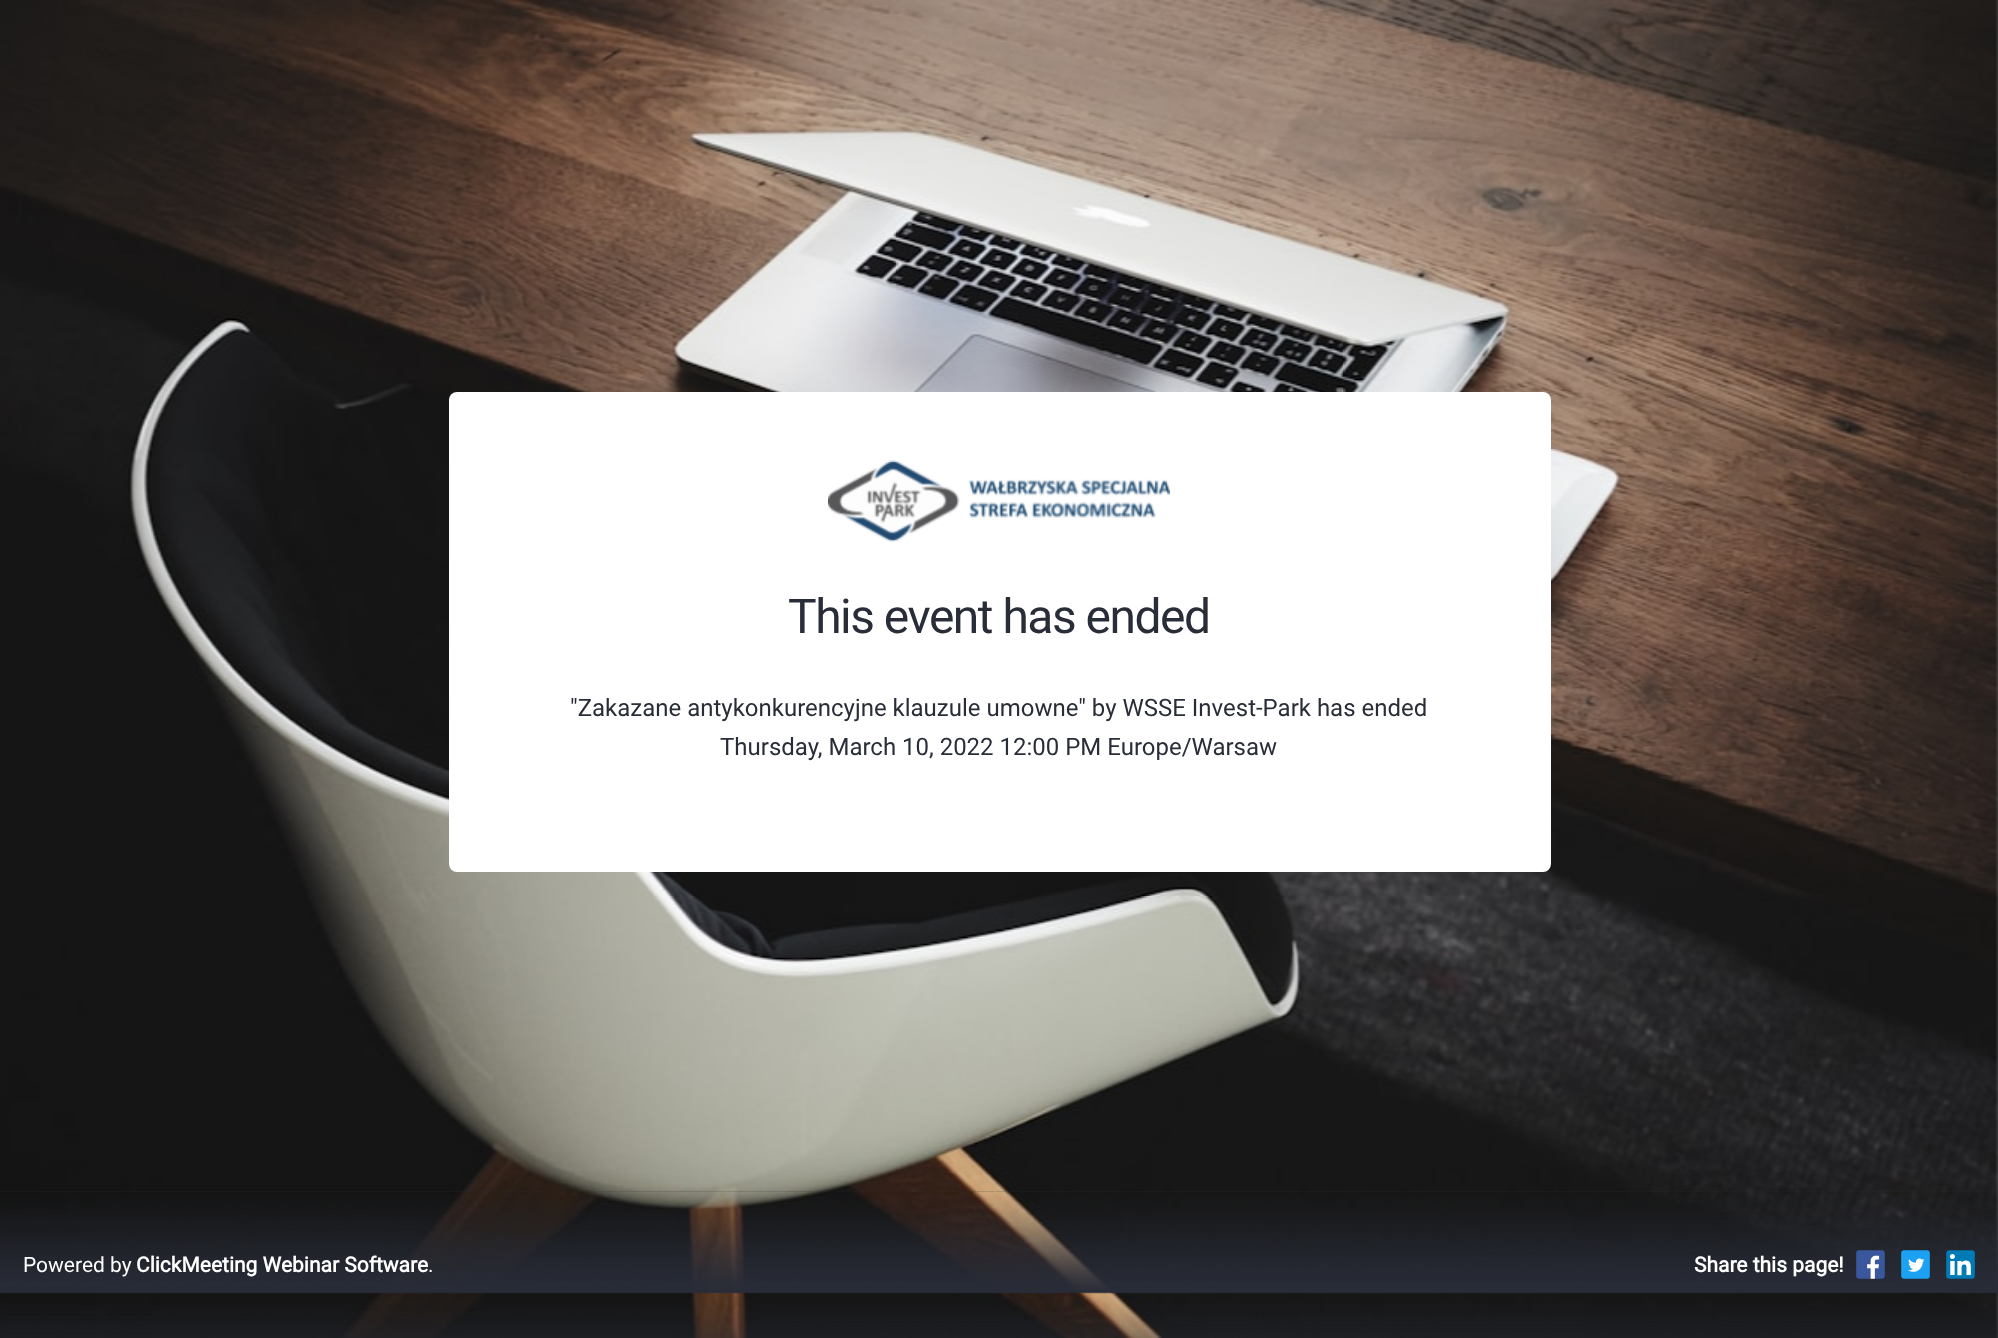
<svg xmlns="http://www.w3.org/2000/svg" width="1998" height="1338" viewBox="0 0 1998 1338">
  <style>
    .t1 { font: 48px Roboto; letter-spacing: -1.5px; fill: #292d38; }
    .t2 { font: 24px Roboto; fill: #292d38; }
    .t3 { font: 21px Roboto; fill: #fff; }
    .t4 { font: bold 21px Roboto; fill: #fff; }
  </style>
  <rect width="100%" height="100%" fill="#fff"/>
  <image x="0" y="0" width="1998" height="1338" href="images/1.png"/>
  <rect x="449" y="392" width="1102" height="480" rx="8" fill="#fff"/>
  <image x="828" y="460" width="342" height="82" href="images/2.png"/>
  <text x="788" y="633" class="t1">This event has ended</text>
  <text x="570" y="716" class="t2">"Zakazane antykonkurencyjne klauzule umowne" by WSSE Invest-Park has ended</text>
  <text x="720" y="755" class="t2">Thursday, March 10, 2022 12:00 PM Europe/Warsaw</text>
  <image x="0" y="1191" width="1998" height="147" href="images/3.png"/>
  <text x="23" y="1272" class="t3">Powered by</text>
  <text x="136" y="1272" class="t4">ClickMeeting Webinar Software</text>
  <text x="428" y="1272" class="t3">.</text>
  <text x="1694" y="1272" class="t4">Share this page!</text>
  <image x="1856" y="1250" width="29" height="29" href="images/4.png"/>
  <image x="1901" y="1250" width="29" height="29" href="images/5.png"/>
  <image x="1946" y="1250" width="29" height="29" href="images/6.png"/>
</svg>
